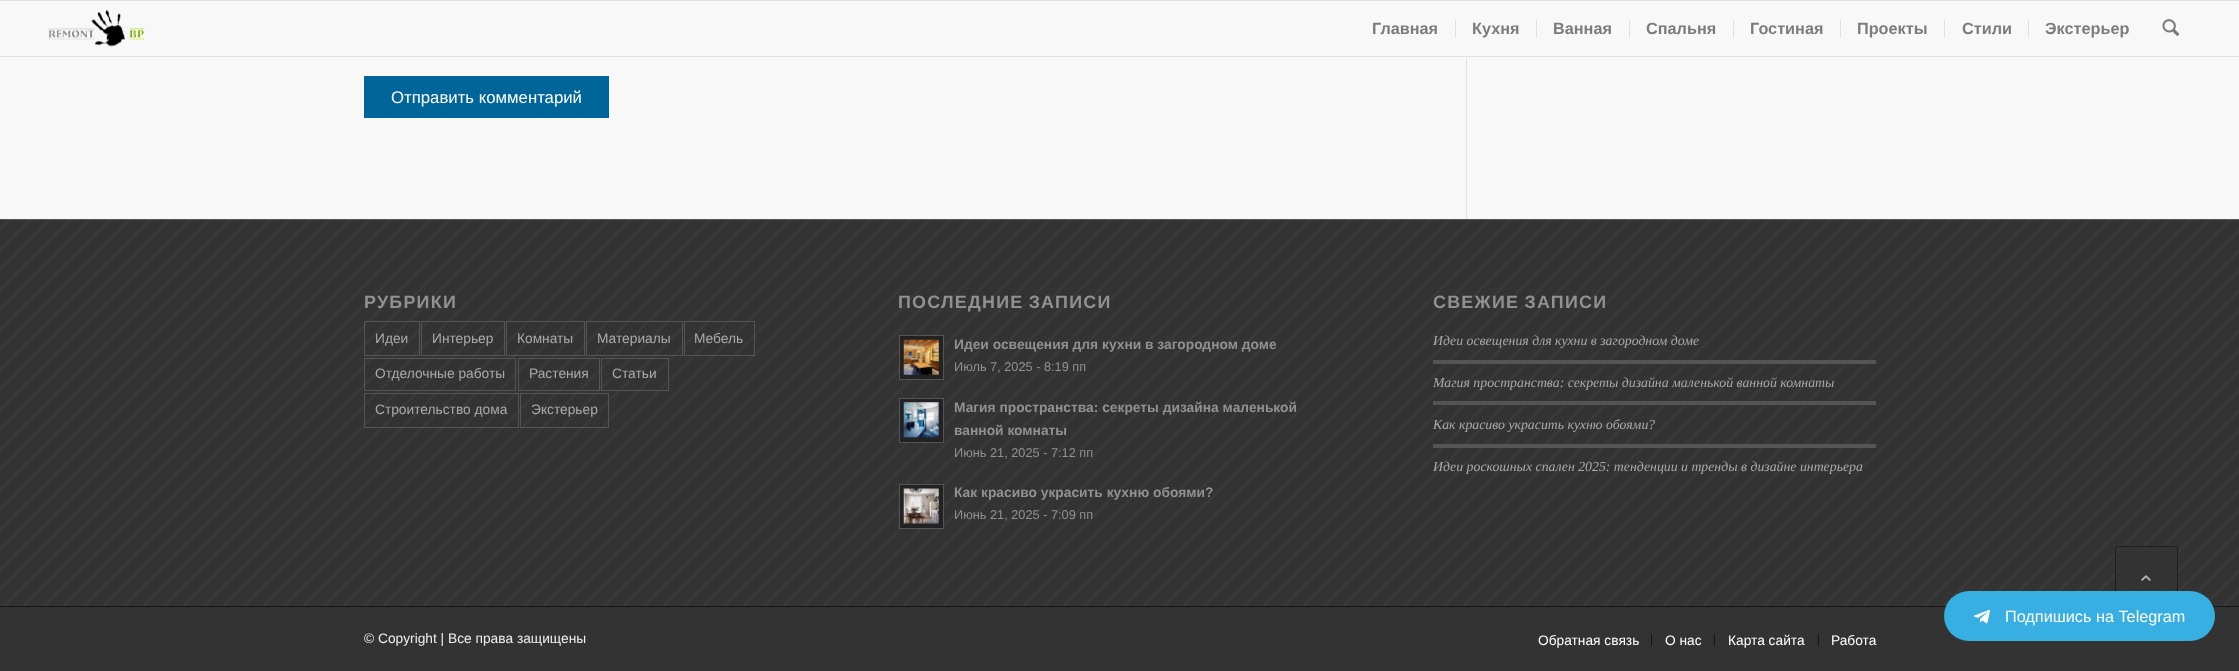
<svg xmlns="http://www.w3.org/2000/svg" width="2239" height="671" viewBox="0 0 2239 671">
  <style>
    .t1 { font: bold 16.25px Liberation Sans; fill: #7c7c7c; }
    .t2 { font: 16.75px Liberation Sans; fill: #fff; }
    .t3 { font: bold 17.9px Liberation Sans; letter-spacing: 1.25px; fill: #919191; }
    .t4 { font: 13.75px Liberation Sans; fill: #aaa; }
    .t5 { font: bold 13.8px Liberation Sans; fill: #919191; }
    .t6 { font: 12.75px Liberation Sans; fill: #919191; }
    .t7 { font: italic 13.8px Liberation Serif; fill: #aaa; }
    .t8 { font: 13.75px Liberation Sans; fill: #eee; }
    .t9 { font: 13.75px Liberation Sans; fill: #fff; }
    .t10 { font: 16.25px Liberation Sans; fill: #fff; }
  </style>
  <rect width="100%" height="100%" fill="#f8f8f8"/>
  <rect x="0" y="0" width="2239" height="1" fill="#e1e1e1"/>
  <rect x="0" y="56" width="2239" height="1" fill="#e1e1e1"/>
  <image x="48" y="10" width="97" height="37" href="images/1.png"/>
  <text x="1372" y="34" class="t1">Главная</text>
  <text x="1472" y="34" class="t1">Кухня</text>
  <rect x="1455" y="19" width="1" height="19" fill="#e1e1e1"/>
  <text x="1553" y="34" class="t1">Ванная</text>
  <rect x="1536" y="19" width="1" height="19" fill="#e1e1e1"/>
  <text x="1646" y="34" class="t1">Спальня</text>
  <rect x="1629" y="19" width="1" height="19" fill="#e1e1e1"/>
  <text x="1750" y="34" class="t1">Гостиная</text>
  <rect x="1733" y="19" width="1" height="19" fill="#e1e1e1"/>
  <text x="1857" y="34" class="t1">Проекты</text>
  <rect x="1840" y="19" width="1" height="19" fill="#e1e1e1"/>
  <text x="1962" y="34" class="t1">Стили</text>
  <rect x="1944" y="19" width="1" height="19" fill="#e1e1e1"/>
  <text x="2045" y="34" class="t1">Экстерьер</text>
  <rect x="2028" y="19" width="1" height="19" fill="#e1e1e1"/>
  <image x="2162" y="19" width="18" height="17" href="images/2.png"/>
  <rect x="1466" y="58" width="1" height="161" fill="#e1e1e1"/>
  <rect x="364" y="76" width="245" height="42" fill="#069"/>
  <text x="391" y="103" class="t2">Отправить комментарий</text>
  <rect x="0" y="220" width="2239" height="386" fill="#333"/>
  <image x="0" y="220" width="2239" height="386" href="images/3.png"/>
  <rect x="0" y="219" width="2239" height="1" fill="#555"/>
  <text x="364" y="308" class="t3">РУБРИКИ</text>
  <rect x="364.5" y="321.5" width="55" height="34" fill="none" stroke="#555"/>
  <text x="375" y="343" class="t4">Идеи</text>
  <rect x="421.5" y="321.5" width="83" height="34" fill="none" stroke="#555"/>
  <text x="432" y="343" class="t4">Интерьер</text>
  <rect x="506.5" y="321.5" width="78" height="34" fill="none" stroke="#555"/>
  <text x="517" y="343" class="t4">Комнаты</text>
  <rect x="586.5" y="321.5" width="96" height="34" fill="none" stroke="#555"/>
  <text x="597" y="343" class="t4">Материалы</text>
  <rect x="684.5" y="321.5" width="70" height="34" fill="none" stroke="#555"/>
  <text x="694" y="343" class="t4">Мебель</text>
  <rect x="364.5" y="358.5" width="151" height="32" fill="none" stroke="#555"/>
  <text x="375" y="378" class="t4">Отделочные работы</text>
  <rect x="518.5" y="358.5" width="81" height="32" fill="none" stroke="#555"/>
  <text x="529" y="378" class="t4">Растения</text>
  <rect x="601.5" y="358.5" width="67" height="32" fill="none" stroke="#555"/>
  <text x="612" y="378" class="t4">Статьи</text>
  <rect x="364.5" y="393.5" width="154" height="34" fill="none" stroke="#555"/>
  <text x="375" y="414" class="t4">Строительство дома</text>
  <rect x="520.5" y="393.5" width="88" height="34" fill="none" stroke="#555"/>
  <text x="531" y="414" class="t4">Экстерьер</text>
  <text x="898" y="308" word-spacing="-1" class="t3">ПОСЛЕДНИЕ ЗАПИСИ</text>
  <rect x="899.5" y="335.5" width="44" height="44" fill="#222" stroke="#555"/>
  <image x="903" y="339" width="36" height="36" href="images/4.png"/>
  <text x="954" y="349" class="t5">Идеи освещения для кухни в загородном доме</text>
  <text x="954" y="371" class="t6">Июль 7, 2025 - 8:19 пп</text>
  <rect x="899.5" y="398.5" width="44" height="44" fill="#222" stroke="#555"/>
  <image x="903" y="402" width="36" height="36" href="images/5.png"/>
  <text x="954" y="412" class="t5">Магия пространства: секреты дизайна маленькой</text>
  <text x="954" y="435" class="t5">ванной комнаты</text>
  <text x="954" y="457" class="t6">Июнь 21, 2025 - 7:12 пп</text>
  <rect x="899.5" y="484.5" width="44" height="44" fill="#222" stroke="#555"/>
  <image x="903" y="488" width="36" height="36" href="images/6.png"/>
  <text x="954" y="497" class="t5">Как красиво украсить кухню обоями?</text>
  <text x="954" y="519" class="t6">Июнь 21, 2025 - 7:09 пп</text>
  <text x="1433" y="308" word-spacing="-1" class="t3">СВЕЖИЕ ЗАПИСИ</text>
  <text x="1433" y="345" class="t7">Идеи освещения для кухни в загородном доме</text>
  <rect x="1433" y="360" width="443" height="4" fill="#555"/>
  <text x="1433" y="387" class="t7">Магия пространства: секреты дизайна маленькой ванной комнаты</text>
  <rect x="1433" y="401" width="443" height="4" fill="#555"/>
  <text x="1433" y="429" class="t7">Как красиво украсить кухню обоями?</text>
  <rect x="1433" y="444" width="443" height="4" fill="#555"/>
  <text x="1433" y="471" class="t7">Идеи роскошных спален 2025: тенденции и тренды в дизайне интерьера</text>
  <rect x="0" y="607" width="2239" height="64" fill="#333"/>
  <rect x="0" y="606" width="2239" height="1" fill="#161616"/>
  <text x="364" y="643" class="t8">© Copyright | Все права защищены</text>
  <text x="1538" y="645" class="t9">Обратная связь</text>
  <rect x="1651" y="634" width="1" height="12" fill="#161616"/>
  <text x="1665" y="645" class="t9">О нас</text>
  <rect x="1714" y="634" width="1" height="12" fill="#161616"/>
  <text x="1728" y="645" class="t9">Карта сайта</text>
  <rect x="1818" y="634" width="1" height="12" fill="#161616"/>
  <text x="1831" y="645" class="t9">Работа</text>
  <rect x="2115" y="546" width="63" height="63" rx="2.5" fill="#333333b3"/>
  <rect x="2115.5" y="546.5" width="62" height="62" rx="2" fill="none" stroke="#161616b3"/>
  <image x="2141" y="575" width="10" height="6" href="images/7.png"/>
  <rect x="1944" y="591" width="271" height="50" rx="25" fill="#37afe2"/>
  <image x="1973" y="609" width="17" height="15" href="images/8.png"/>
  <text x="2005" y="622" class="t10">Подпишись на Telegram</text>
</svg>
